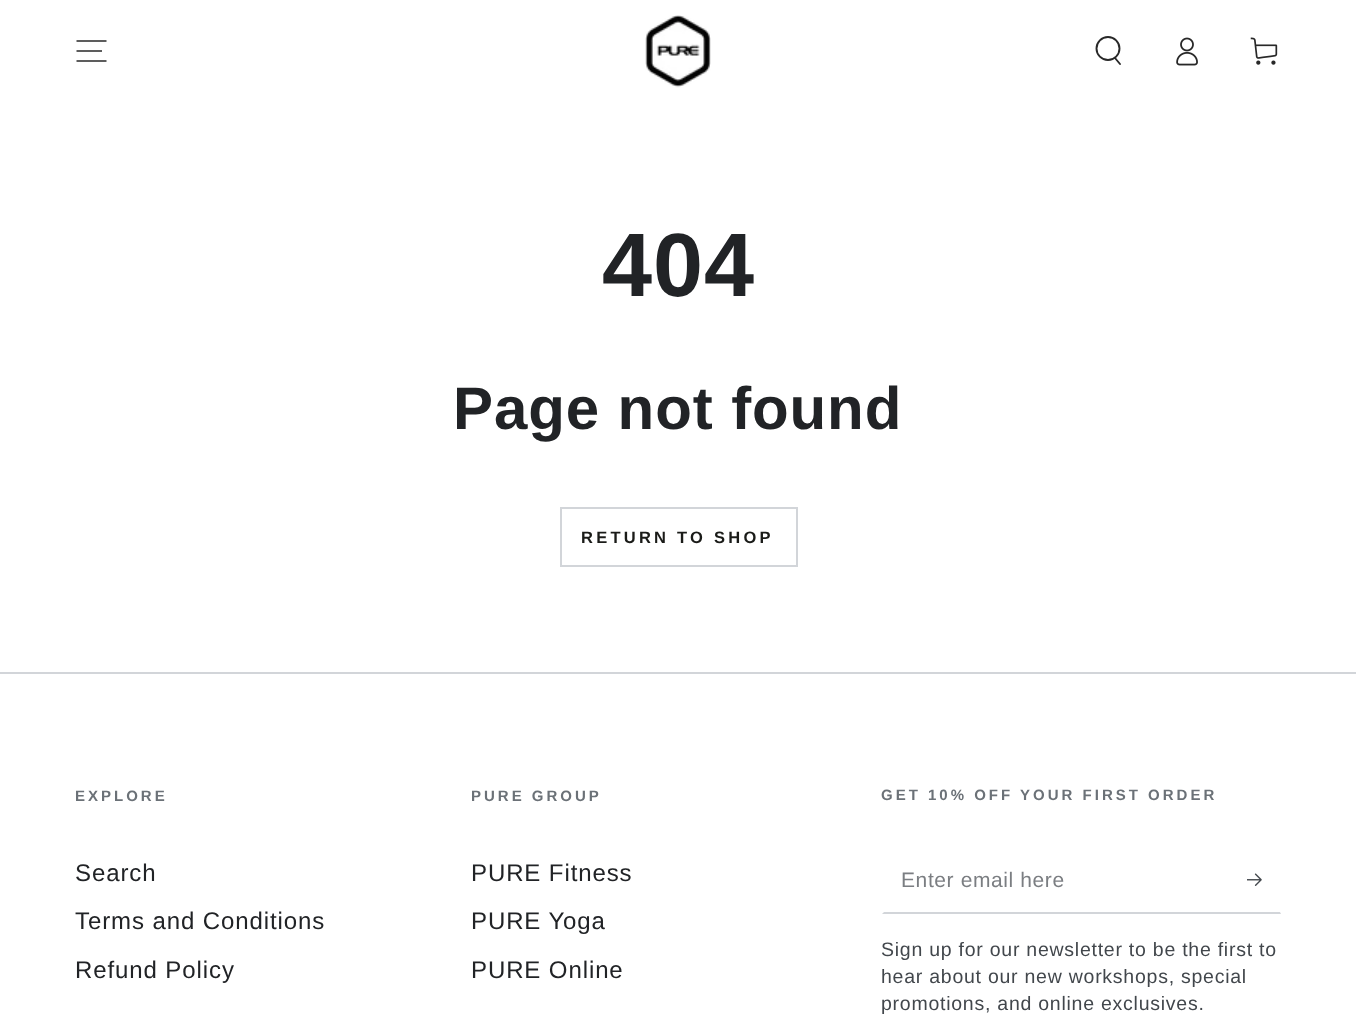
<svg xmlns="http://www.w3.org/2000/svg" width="1356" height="1021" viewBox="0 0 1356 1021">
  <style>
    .t1 { font: bold 90px Liberation Sans; letter-spacing: 0.9px; fill: #212326; }
    .t2 { font: bold 60px Liberation Sans; letter-spacing: 0.9px; fill: #212326; }
    .t3 { font: bold 16.5px Liberation Sans; letter-spacing: 3.25px; fill: #1a1b18; }
    .t4 { font: bold 15px Liberation Sans; letter-spacing: 3px; fill: #6b7177; }
    .t5 { font: 24px Liberation Sans; letter-spacing: 0.9px; fill: #212326; }
    .t6 { font: 21px Liberation Sans; letter-spacing: 0.6px; fill: #7b7e82; }
    .t7 { font: 19.5px Liberation Sans; letter-spacing: 0.75px; fill: #42474c; }
  </style>
  <rect width="100%" height="100%" fill="#fff"/>
  <path d="M76.5 61H106.5M76.5 51H102M76.5 41H106.5" fill="none" stroke="#282828" stroke-width="1.7"/>
  <image x="645" y="15" width="66" height="73" href="images/1.png"/>
  <circle cx="1108" cy="48.5" r="11.5" fill="none" stroke="#282828" stroke-width="1.9"/>
  <path d="M1115 58L1120 64" fill="none" stroke="#282828" stroke-width="1.9" stroke-linecap="round"/>
  <image x="1176" y="37" width="22" height="29" href="images/2.png"/>
  <image x="1250" y="37" width="28" height="28" href="images/3.png"/>
  <text x="602" y="296" class="t1">404</text>
  <text x="453" y="429" class="t2">Page not found</text>
  <rect x="561" y="508" width="236" height="58" fill="none" stroke="#d2d5d9" stroke-width="2"/>
  <text x="581" y="543" class="t3">RETURN TO SHOP</text>
  <rect x="0" y="672" width="1356" height="2" fill="#d2d5d9"/>
  <text x="75" y="801" class="t4">EXPLORE</text>
  <text x="75" y="881" class="t5">Search</text>
  <text x="75" y="929" class="t5">Terms and Conditions</text>
  <text x="75" y="978" class="t5">Refund Policy</text>
  <text x="471" y="801" class="t4">PURE GROUP</text>
  <text x="471" y="881" class="t5">PURE Fitness</text>
  <text x="471" y="929" class="t5">PURE Yoga</text>
  <text x="471" y="978" class="t5">PURE Online</text>
  <text x="881" y="800" class="t4">GET 10% OFF YOUR FIRST ORDER</text>
  <path d="M1281 914H882L884 912H1280Z" fill="#d2d5d9"/>
  <text x="901" y="887" class="t6">Enter email here</text>
  <image x="1247" y="873" width="15" height="13" href="images/4.png"/>
  <text x="881" y="956" class="t7">Sign up for our newsletter to be the first to</text>
  <text x="881" y="983" class="t7">hear about our new workshops, special</text>
  <text x="881" y="1010" class="t7">promotions, and online exclusives.</text>
</svg>
